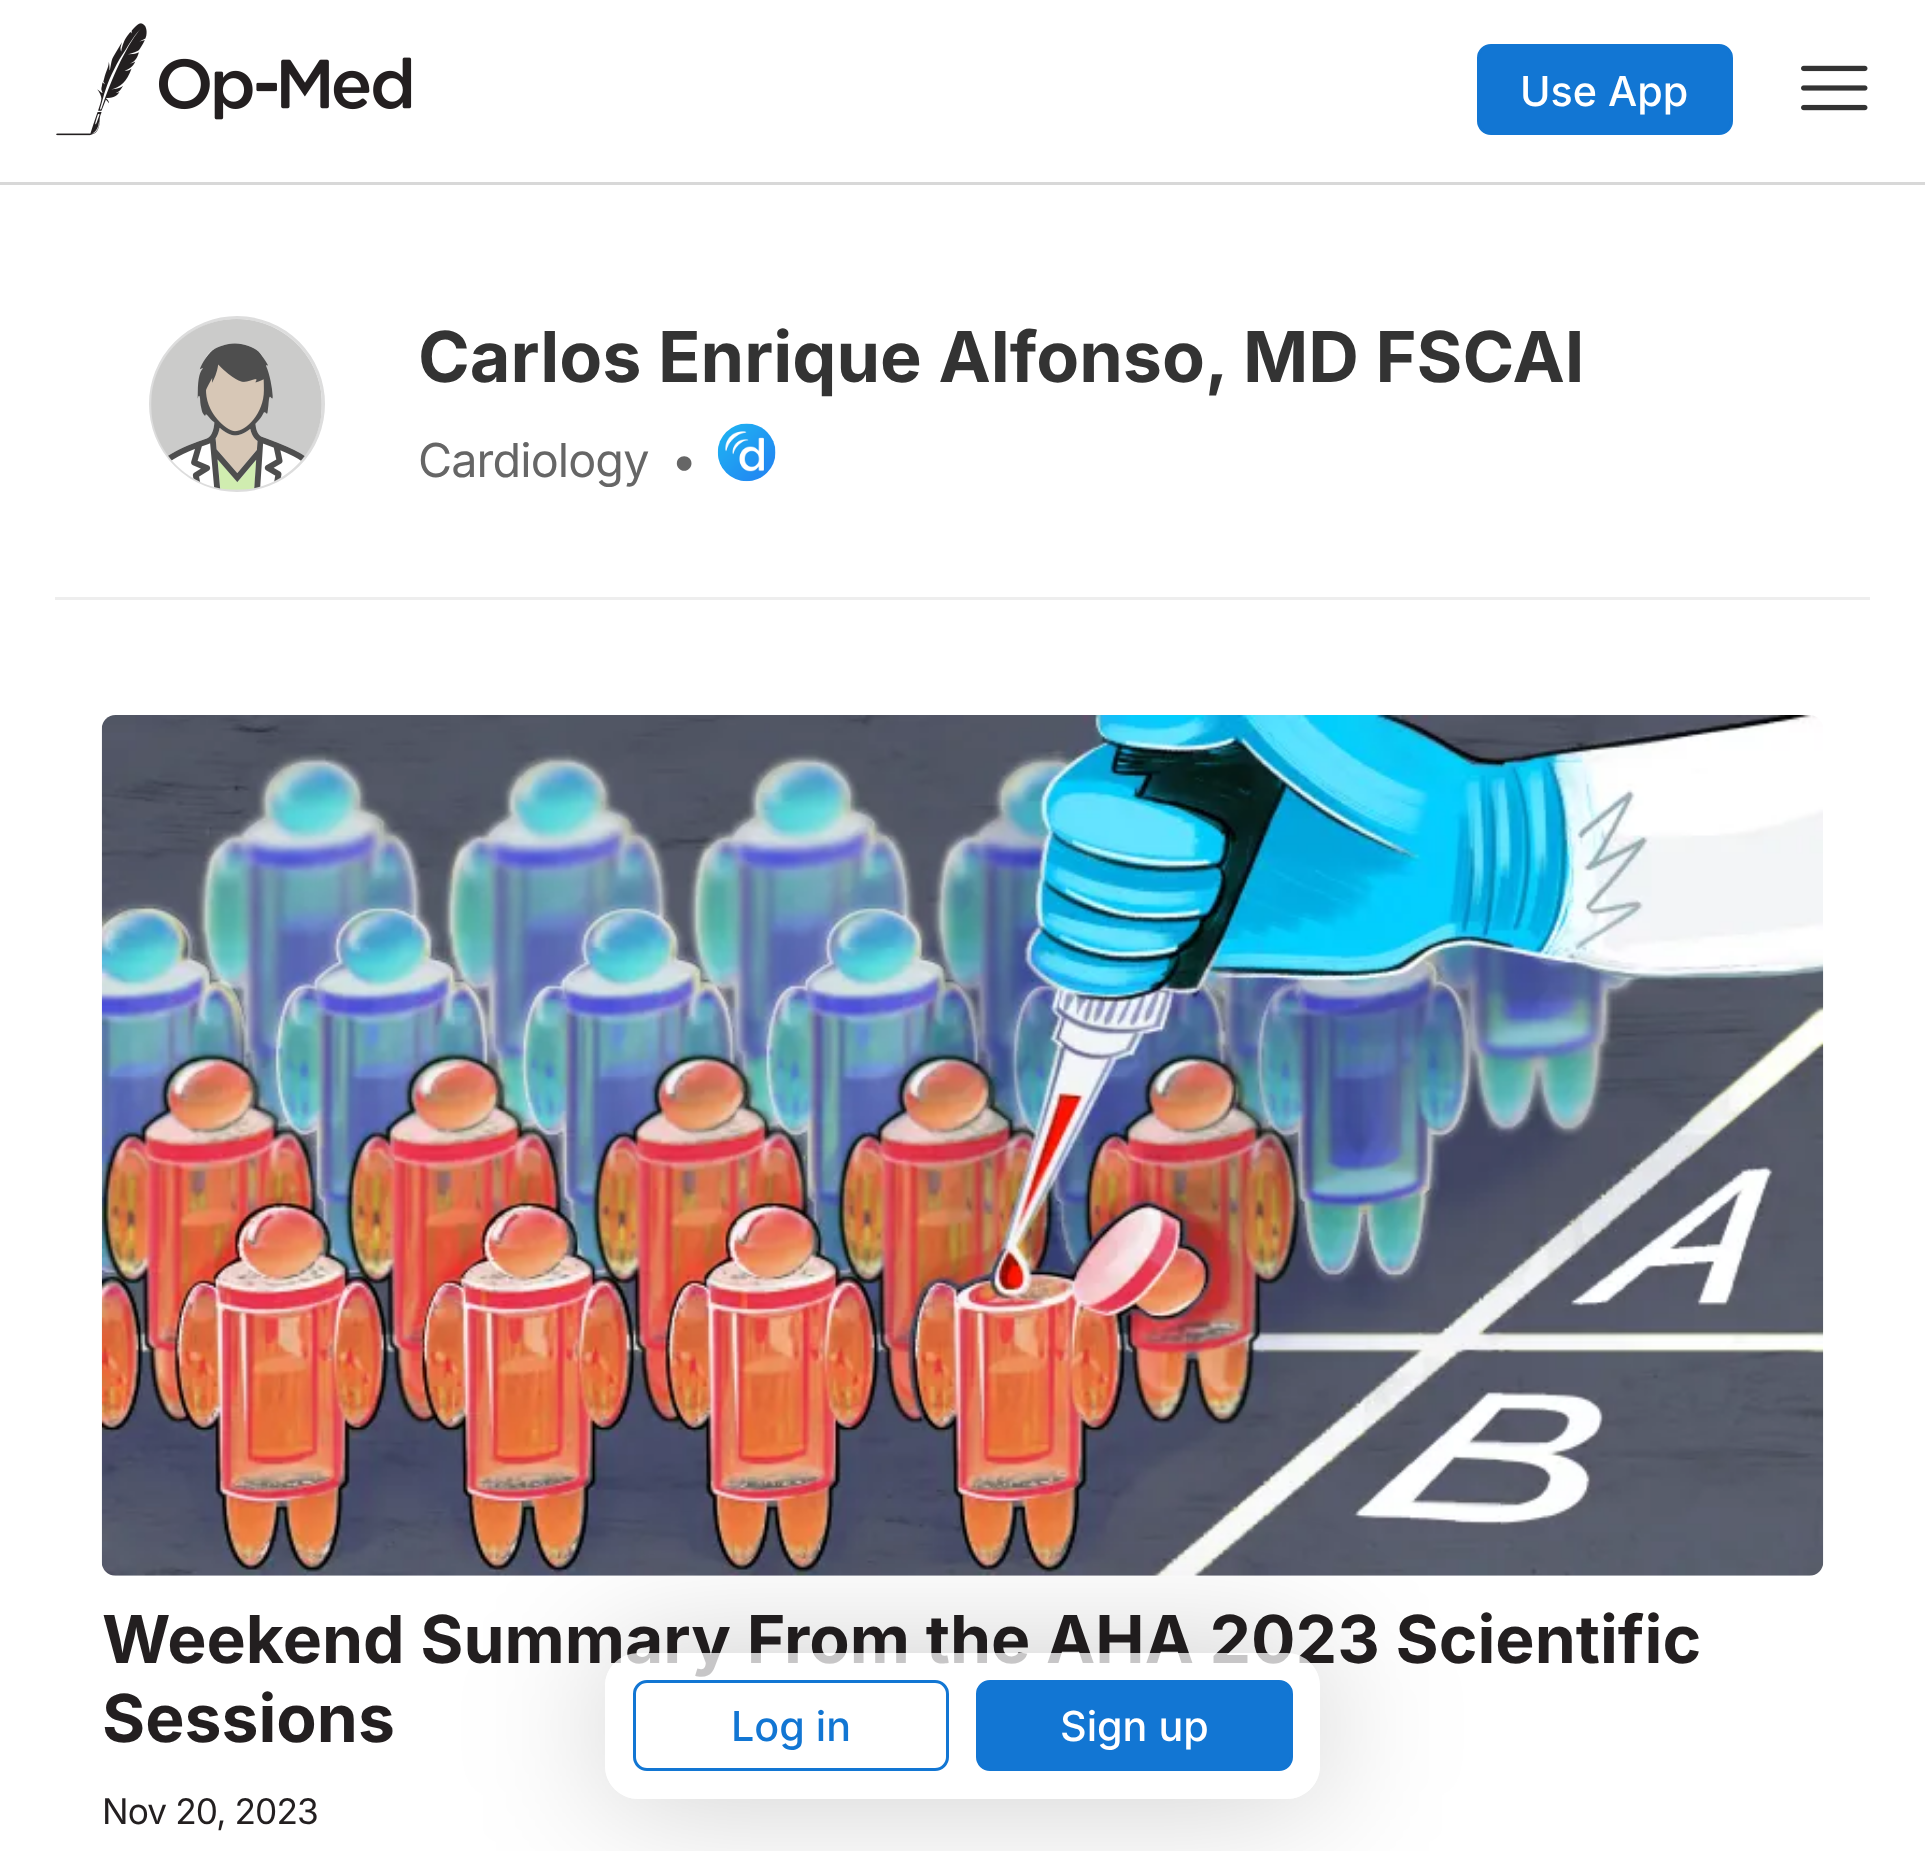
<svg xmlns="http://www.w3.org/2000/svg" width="1925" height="1851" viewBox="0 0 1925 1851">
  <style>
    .t1 { font: 500 41.25px Inter; fill: #fff; }
    .t2 { font: bold 70.1px Inter; fill: #333; }
    .t3 { font: 46.75px Inter; letter-spacing: -0.9px; fill: #666; }
    .t4 { font: bold 66px Inter; fill: #231f20; }
    .t5 { font: 35.25px Inter; letter-spacing: -0.9px; fill: #231f20; }
    .t6 { font: 500 41.25px Inter; fill: #1276d3; }
  </style>
  <defs>
    <clipPath id="clip1"><path d="M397 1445H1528V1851H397ZM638 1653H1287C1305 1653 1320 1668 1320 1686V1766C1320 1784 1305 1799 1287 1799H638C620 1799 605 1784 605 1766V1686C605 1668 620 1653 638 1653Z" clip-rule="evenodd"/></clipPath>
  </defs>
  <rect width="100%" height="100%" fill="#fff"/>
  <rect x="0" y="182" width="1925" height="3" fill="#d8d8d8"/>
  <image x="56" y="23" width="356" height="113" href="images/1.png"/>
  <rect x="1478.5" y="45.5" width="253" height="88" rx="12.5" fill="#1276d3" stroke="#1276d3" stroke-width="3"/>
  <text x="1520" y="106" class="t1">Use App</text>
  <image x="1801" y="65" width="67" height="46" href="images/2.png"/>
  <circle cx="237" cy="404" r="86.5" fill="none" stroke="#ddd" stroke-width="3"/>
  <image x="151" y="319" width="171" height="171" href="images/3.png"/>
  <text x="418" y="382" class="t2">Carlos Enrique Alfonso, MD FSCAI</text>
  <text x="418" y="477" class="t3">Cardiology</text>
  <text x="671" y="477" class="t3">•</text>
  <image x="717" y="423" width="59" height="59" href="images/4.png"/>
  <rect x="55" y="597" width="1815" height="3" fill="#eee"/>
  <image x="101" y="715" width="1723" height="861" href="images/5.png"/>
  <text x="102" y="1663" class="t4">Weekend Summary From the AHA 2023 Scientific</text>
  <text x="102" y="1742" class="t4">Sessions</text>
  <text x="102" y="1824" class="t5">Nov 20, 2023</text>
  <g clip-path="url(#clip1)">
    <rect x="605" y="1653" width="715" height="146" rx="33" fill="#00000033" filter="blur(69px)"/>
  </g>
  <rect x="605" y="1653" width="715" height="146" rx="33" fill="#ffffffbf"/>
  <rect x="634.5" y="1681.5" width="313" height="88" rx="12.5" fill="none" stroke="#1276d3" stroke-width="3"/>
  <text x="731" y="1741" class="t6">Log in</text>
  <rect x="977.5" y="1681.5" width="314" height="88" rx="12.5" fill="#1276d3" stroke="#1276d3" stroke-width="3"/>
  <text x="1060" y="1741" class="t1">Sign up</text>
</svg>
